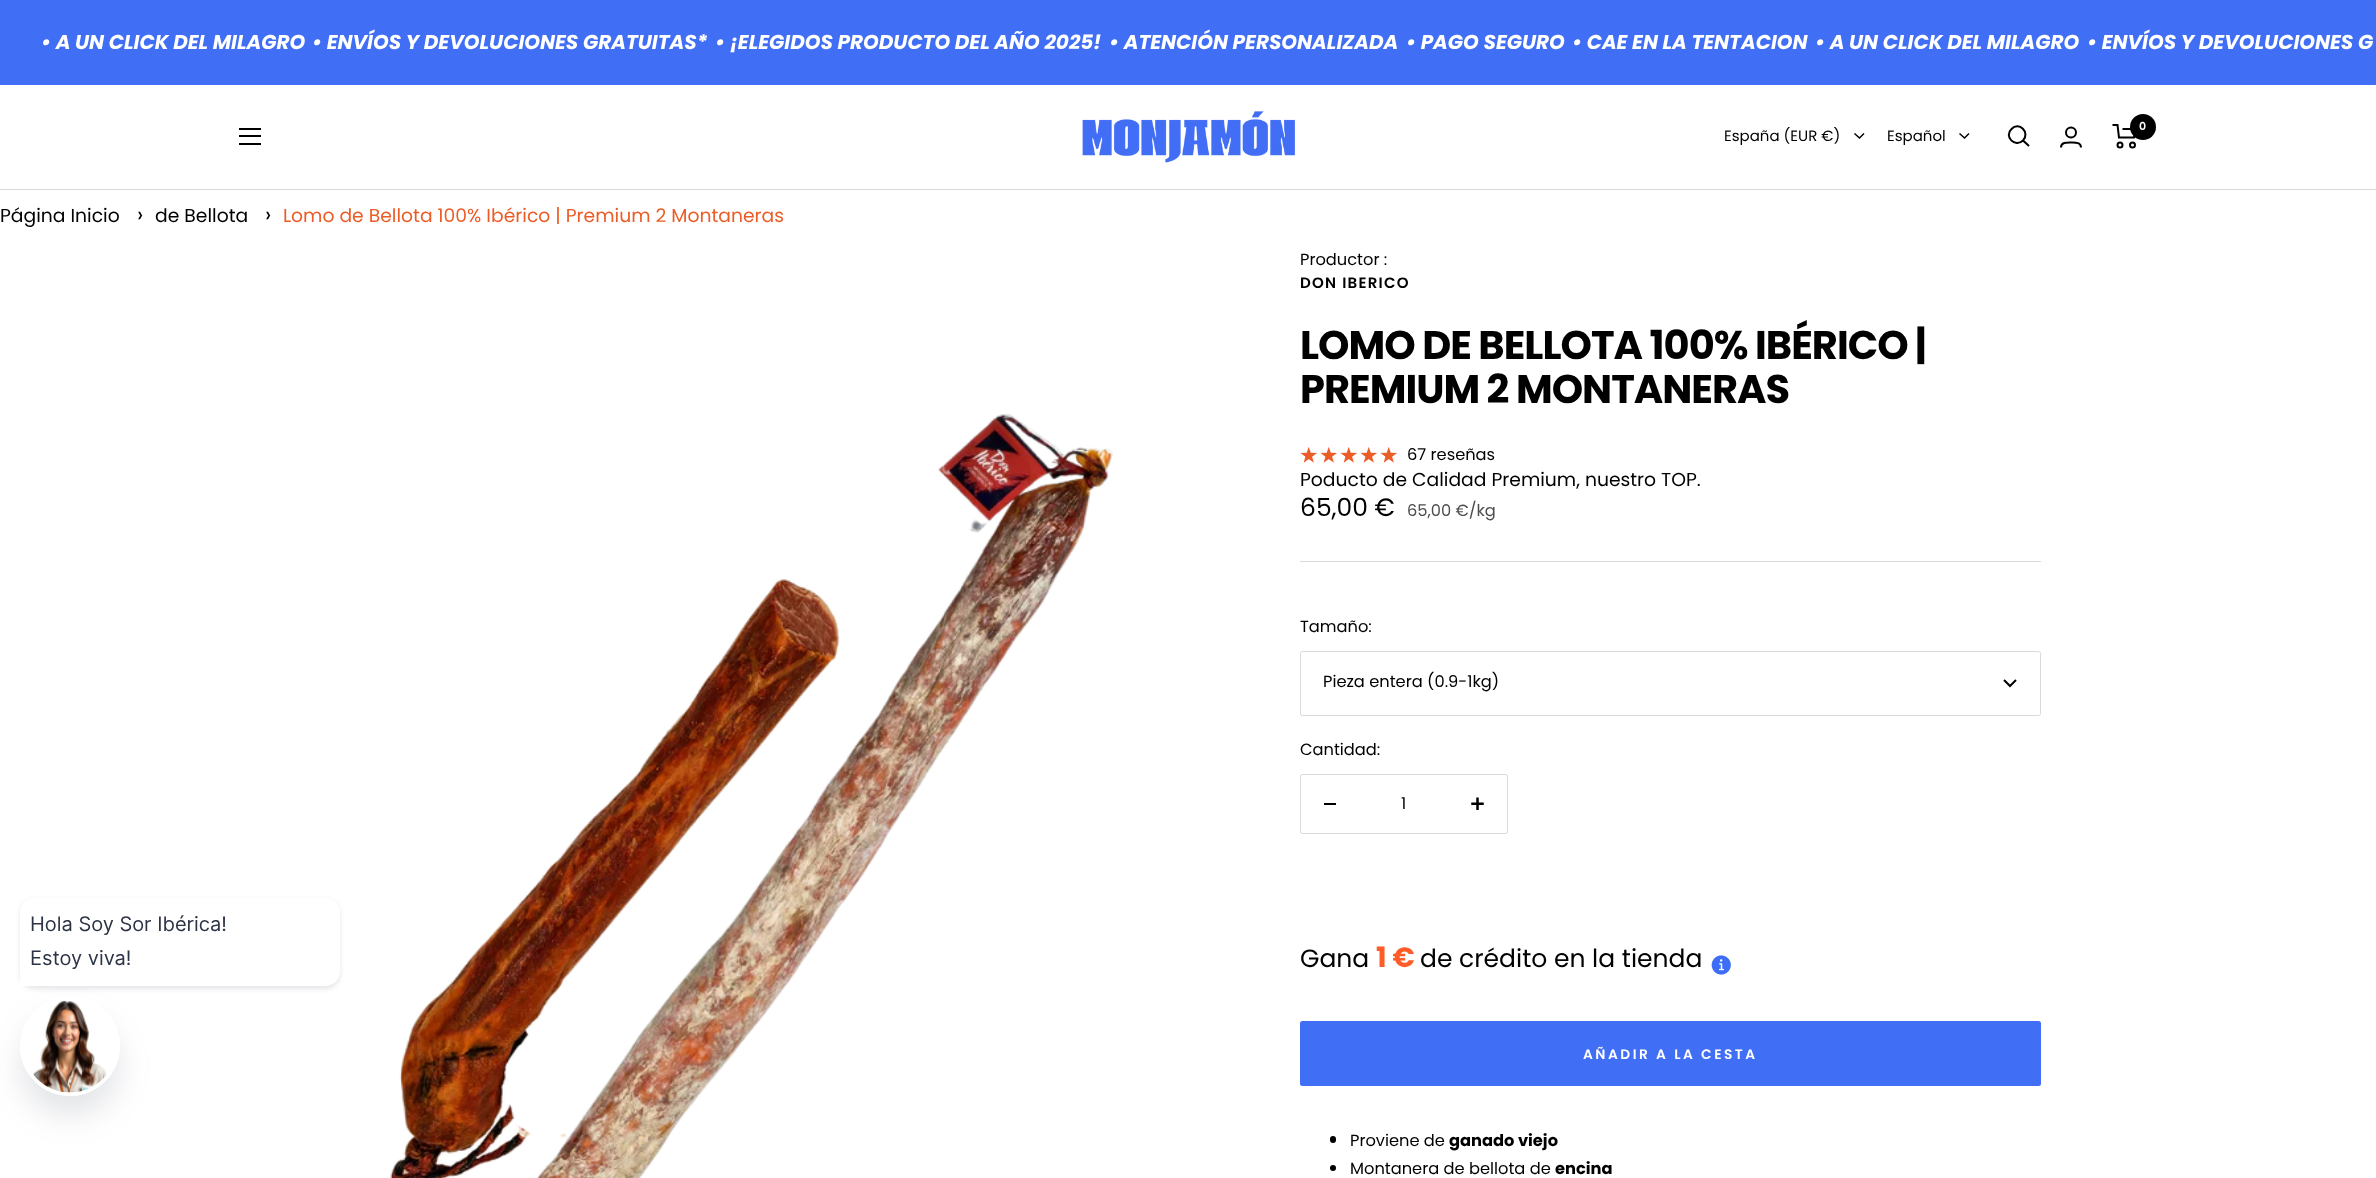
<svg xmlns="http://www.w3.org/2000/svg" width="2376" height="1178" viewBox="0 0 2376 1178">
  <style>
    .t1 { font: italic bold 20px Poppins; fill: #fff; }
    .t2 { font: 600 11px Poppins; fill: #fff; }
    .t3 { font: 15px Poppins; fill: #000; }
    .t4 { font: 18.75px Poppins; fill: #000; }
    .t5 { font: 22px Poppins; fill: #000; }
    .t6 { font: 18.75px Poppins; fill: #eb5c27; }
    .t7 { font: 20px Inter; fill: #2c3345; }
    .t8 { font: 16.25px Poppins; fill: #000; }
    .t9 { font: 600 15px Poppins; letter-spacing: 1.25px; fill: #000; }
    .t10 { font: bold 40px Poppins; letter-spacing: -1px; fill: #000; }
    .t11 { font: 25px Poppins; fill: #000; }
    .t12 { font: 16.25px Poppins; fill: #4d4d4d; }
    .t13 { font: bold 28px Poppins; fill: #ff5c27; }
    .t14 { font: 600 13.75px Poppins; letter-spacing: 2.5px; fill: #fff; }
    .t15 { font: bold 16.25px Poppins; fill: #000; }
  </style>
  <defs>
    <clipPath id="clip1"><path d="M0 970H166V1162H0ZM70 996C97.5 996 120 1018.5 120 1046C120 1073.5 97.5 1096 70 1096C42.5 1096 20 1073.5 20 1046C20 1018.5 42.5 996 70 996Z" clip-rule="evenodd"/></clipPath>
  </defs>
  <rect width="100%" height="100%" fill="#fff"/>
  <rect x="0" y="0" width="2376" height="85" fill="#406ef5"/>
  <text x="41" y="49" class="t1">• A UN CLICK DEL MILAGRO</text>
  <text x="312" y="49" class="t1">• ENVÍOS Y DEVOLUCIONES GRATUITAS*</text>
  <text x="715" y="49" class="t1">• ¡ELEGIDOS PRODUCTO DEL AÑO 2025!</text>
  <text x="1109" y="49" class="t1">• ATENCIÓN PERSONALIZADA</text>
  <text x="1406" y="49" class="t1">• PAGO SEGURO</text>
  <text x="1572" y="49" class="t1">• CAE EN LA TENTACION</text>
  <text x="1815" y="49" class="t1">• A UN CLICK DEL MILAGRO</text>
  <text x="2087" y="49" class="t1">• ENVÍOS Y DEVOLUCIONES G</text>
  <rect x="0" y="189" width="2376" height="1" fill="#d9d9d9"/>
  <path d="M239 129H261M239 144H261ZM239 136H261Z" fill="none" stroke="#000" stroke-width="2"/>
  <image x="1082" y="111" width="213" height="52" href="images/1.png"/>
  <path d="M2023 140.5C2030.5 132.5 2019 121 2011.5 129C2003.5 136.5 2015 148 2023 140.5ZM2023 140.5L2029 146" fill="none" stroke="#000" stroke-width="2"/>
  <circle cx="2071" cy="132.5" r="5" fill="none" stroke="#000" stroke-width="2"/>
  <path d="M2061 147.5C2061 142 2067.5 142.5 2071 142.5C2075 142.5 2081 142 2081 147.5" fill="none" stroke="#000" stroke-width="2"/>
  <path d="M2112.5 125H2117.5L2119 137.5H2134L2136 129H2122.5" fill="none" stroke="#000" stroke-width="2"/>
  <circle cx="2120" cy="145" r="2.5" fill="none" stroke="#000" stroke-width="2"/>
  <circle cx="2132.5" cy="145" r="2.5" fill="none" stroke="#000" stroke-width="2"/>
  <circle cx="2143" cy="127" r="13" fill="#000"/>
  <text x="2139" y="130" class="t2">0</text>
  <text x="1724" y="141" class="t3">España (EUR €)</text>
  <path d="M1854.5 133.5L1859.5 138L1864 133.5" fill="none" stroke="#000" stroke-width="1.5"/>
  <text x="1887" y="141" class="t3">Español</text>
  <path d="M1959.5 133.5L1964.5 138L1969 133.5" fill="none" stroke="#000" stroke-width="1.5"/>
  <text x="0" y="222" class="t4">Página Inicio</text>
  <text x="137" y="222" class="t5">›</text>
  <text x="155" y="222" class="t4">de Bellota</text>
  <text x="265" y="222" class="t5">›</text>
  <text x="283" y="222" class="t6">Lomo de Bellota 100% Ibérico | Premium 2 Montaneras</text>
  <rect x="20" y="900" width="320" height="89" rx="15" fill="#545f6f29" filter="blur(2.5px)"/>
  <path d="M35 898H325C333.5 898 340 904.5 340 913V971C340 979.5 333.5 986 325 986H20V913C20 904.5 26.5 898 35 898Z" fill="#fff"/>
  <text x="30" y="931" class="t7">Hola Soy Sor Ibérica!</text>
  <text x="30" y="965" class="t7">Estoy viva!</text>
  <g clip-path="url(#clip1)">
    <rect x="20" y="1016" width="100" height="100" rx="50" fill="#545f6f29" filter="blur(15px)"/>
  </g>
  <circle cx="70" cy="1046" r="48" fill="none" stroke="#fff" stroke-width="4"/>
  <image x="33" y="1000" width="74" height="93" href="images/2.png"/>
  <image x="390" y="413" width="723" height="765" href="images/3.png"/>
  <rect x="1300" y="561" width="741" height="1" fill="#d9d9d9"/>
  <text x="1300" y="265" class="t8">Productor :</text>
  <text x="1300" y="288" class="t9">DON IBERICO</text>
  <text x="1300" y="359" class="t10">LOMO DE BELLOTA 100% IBÉRICO |</text>
  <text x="1300" y="403" class="t10">PREMIUM 2 MONTANERAS</text>
  <image x="1300" y="447" width="17" height="16" href="images/4.png"/>
  <image x="1320" y="447" width="17" height="16" href="images/4.png"/>
  <image x="1340" y="447" width="17" height="16" href="images/4.png"/>
  <image x="1360" y="447" width="17" height="16" href="images/4.png"/>
  <image x="1380" y="447" width="17" height="16" href="images/4.png"/>
  <text x="1407" y="460" class="t8">67 reseñas</text>
  <text x="1300" y="486" class="t4">Poducto de Calidad Premium, nuestro TOP.</text>
  <text x="1300" y="516" class="t11">65,00 €</text>
  <text x="1407" y="516" class="t12">65,00 €/kg</text>
  <text x="1300" y="632" class="t8">Tamaño:</text>
  <rect x="1300.5" y="651.5" width="740" height="64" rx="2" fill="none" stroke="#d9d9d9"/>
  <text x="1323" y="687" class="t8">Pieza entera (0.9-1kg)</text>
  <path d="M2004 680L2010 686L2016 680" fill="none" stroke="#000" stroke-width="2"/>
  <text x="1300" y="755" class="t8">Cantidad:</text>
  <rect x="1300.5" y="774.5" width="207" height="59" rx="2" fill="none" stroke="#d9d9d9"/>
  <rect x="1324" y="803" width="12" height="2" fill="#000"/>
  <text x="1401" y="809" class="t8">1</text>
  <image x="1471" y="797" width="13" height="13" href="images/5.png"/>
  <text x="1300" y="967" class="t11">Gana</text>
  <text x="1376" y="967" class="t13">1 €</text>
  <text x="1420" y="967" class="t11">de crédito en la tienda</text>
  <image x="1711" y="955" width="20" height="20" href="images/6.png"/>
  <rect x="1300" y="1021" width="741" height="65" rx="2.5" fill="#406ef5"/>
  <text x="1583" y="1059" class="t14">AÑADIR A LA CESTA</text>
  <rect x="1330" y="1136" width="6" height="7" rx="3" fill="#000"/>
  <text x="1350" y="1146" class="t8">Proviene de</text>
  <text x="1449" y="1146" class="t15">ganado viejo</text>
  <circle cx="1333" cy="1168" r="3" fill="#000"/>
  <text x="1350" y="1174" class="t8">Montanera de bellota de</text>
  <text x="1555" y="1174" class="t15">encina</text>
</svg>
